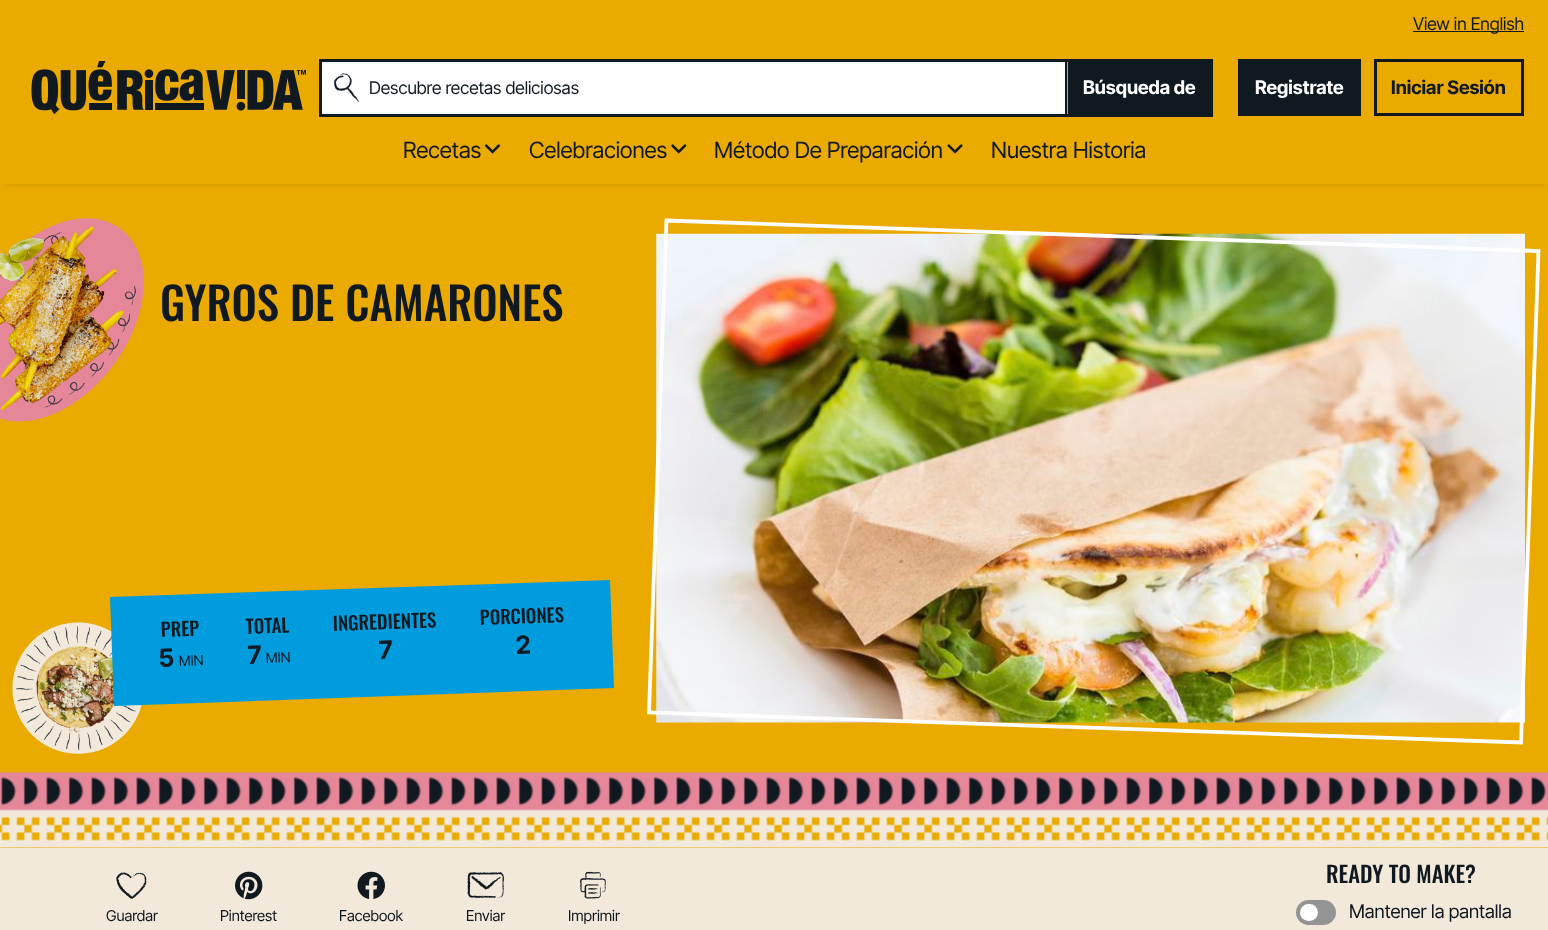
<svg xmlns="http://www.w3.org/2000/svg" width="1548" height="930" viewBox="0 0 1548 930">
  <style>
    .t1 { font: 17.5px Inter Tight; fill: #101820; }
    .t2 { font: bold 18.75px Inter Tight; fill: #fff; }
    .t3 { font: bold 18.75px Inter Tight; fill: #101820; }
    .t4 { font: 22.5px Inter Tight; fill: #101820; }
    .t5 { font: 500 45px Oswald; fill: #101820; }
    .t6 { font: 500 18.75px Oswald; fill: #101820; }
    .t7 { font: bold 25px Inter Tight; fill: #101820; }
    .t8 { font: 14px Inter Tight; fill: #101820; }
    .t9 { font: 15px Inter Tight; fill: #101820; }
    .t10 { font: 500 22.5px Oswald; fill: #101820; }
    .t11 { font: 18.75px Inter Tight; fill: #101820; }
  </style>
  <rect width="100%" height="100%" fill="#f2e9db"/>
  <rect x="0" y="184" width="1548" height="664" fill="#eaaa00"/>
  <rect x="4" y="9" width="1541" height="176" fill="#0000001a" filter="blur(2.5px)"/>
  <rect x="0" y="0" width="1548" height="184" fill="#eaaa00"/>
  <rect x="1413" y="31" width="111" height="1" fill="#101820"/>
  <text x="1413" y="30" class="t1">View in English</text>
  <image x="31" y="61" width="275" height="53" href="images/1.png"/>
  <rect x="322" y="62" width="743" height="52" fill="#fff"/>
  <image x="334" y="73" width="25" height="30" href="images/2.png"/>
  <rect x="319" y="59" width="894" height="3" fill="#101820"/>
  <rect x="1210" y="59" width="3" height="57" fill="#101820"/>
  <rect x="1066" y="114" width="147" height="3" fill="#101820"/>
  <rect x="1065" y="59" width="2" height="57" fill="#101820"/>
  <rect x="319" y="114" width="747" height="3" fill="#101820"/>
  <rect x="319" y="59" width="3" height="57" fill="#101820"/>
  <text x="369" y="94" class="t1">Descubre recetas deliciosas</text>
  <rect x="1068" y="62" width="142" height="52" fill="#101820"/>
  <text x="1083" y="94" class="t2">Búsqueda de</text>
  <rect x="1238" y="59" width="123" height="57" fill="#101820"/>
  <text x="1255" y="94" class="t2">Registrate</text>
  <rect x="1375.5" y="60.5" width="147" height="54" fill="none" stroke="#101820" stroke-width="3"/>
  <text x="1391" y="94" class="t3">Iniciar Sesión</text>
  <text x="403" y="158" class="t4">Recetas</text>
  <image x="485" y="144" width="15" height="10" href="images/3.png"/>
  <text x="529" y="158" class="t4">Celebraciones</text>
  <image x="671" y="144" width="16" height="10" href="images/4.png"/>
  <text x="714" y="158" class="t4">Método De Preparación</text>
  <image x="947" y="144" width="16" height="10" href="images/5.png"/>
  <text x="991" y="158" class="t4">Nuestra Historia</text>
  <image x="0" y="772" width="1548" height="76" href="images/6.png"/>
  <image x="0" y="218" width="144" height="204" href="images/7.png"/>
  <text x="160" y="321" class="t5">GYROS DE CAMARONES</text>
  <image x="656" y="233" width="869" height="490" href="images/8.png"/>
  <path d="M666.5 220.5L1538.5 251L1521 742.5L649 712.5Z" fill="none" stroke="#fff" stroke-width="3.8"/>
  <image x="12" y="622" width="130" height="132" href="images/9.png"/>
  <path d="M110 597L610 580L614 688L114 706Z" fill="#009cde"/>
  <text x="161" y="637" transform="rotate(-2 161 637)" class="t6">PREP</text>
  <text x="159" y="667" transform="rotate(-2 159 667)" class="t7">5</text>
  <text x="179" y="666" transform="rotate(-2 179 666)" class="t8">MIN</text>
  <text x="246" y="634" transform="rotate(-2 246 634)" class="t6">TOTAL</text>
  <text x="248" y="664" transform="rotate(-2 248 664)" class="t7">7</text>
  <text x="266" y="663" transform="rotate(-2 266 663)" class="t8">MIN</text>
  <text x="333" y="631" transform="rotate(-2 333 631)" class="t6">INGREDIENTES</text>
  <text x="379" y="659" transform="rotate(-2 379 659)" class="t7">7</text>
  <text x="480" y="625" transform="rotate(-2 480 625)" class="t6">PORCIONES</text>
  <text x="516" y="654" transform="rotate(-2 516 654)" class="t7">2</text>
  <image x="116" y="872" width="31" height="27" href="images/10.png"/>
  <text x="106" y="921" class="t9">Guardar</text>
  <image x="235" y="871" width="28" height="29" href="images/11.png"/>
  <text x="220" y="921" class="t9">Pinterest</text>
  <image x="357" y="871" width="28" height="28" href="images/12.png"/>
  <text x="339" y="921" class="t9">Facebook</text>
  <image x="467" y="872" width="38" height="27" href="images/13.png"/>
  <text x="466" y="921" class="t9">Enviar</text>
  <image x="580" y="871" width="26" height="28" href="images/14.png"/>
  <text x="568" y="921" class="t9">Imprimir</text>
  <text x="1326" y="883" class="t10">READY TO MAKE?</text>
  <rect x="1296" y="900" width="40" height="25" rx="12.5" fill="#949494"/>
  <rect x="1300" y="904" width="18" height="17" rx="8.5" fill="#fff"/>
  <text x="1349" y="918" class="t11">Mantener la pantalla</text>
</svg>
